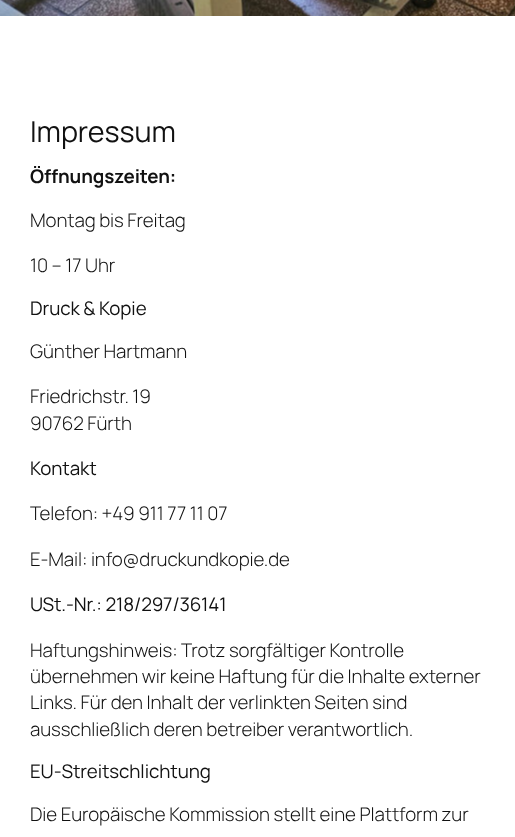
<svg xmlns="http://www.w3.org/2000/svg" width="515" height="837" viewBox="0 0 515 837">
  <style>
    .t1 { font: 28.75px Manrope; letter-spacing: -0.1px; fill: #111; }
    .t2 { font: bold 18.75px Manrope; letter-spacing: -0.1px; fill: #111; }
    .t3 { font: 300 18.75px Manrope; letter-spacing: -0.1px; fill: #111; }
    .t4 { font: 18.75px Manrope; letter-spacing: -0.1px; fill: #111; }
  </style>
  <rect width="100%" height="100%" fill="#fff"/>
  <image x="0" y="0" width="515" height="16" href="images/1.png"/>
  <text x="30" y="142" class="t1">Impressum</text>
  <text x="30" y="183" class="t2">Öffnungszeiten:</text>
  <text x="30" y="227" class="t3">Montag bis Freitag</text>
  <text x="30" y="272" class="t3">10 – 17 Uhr</text>
  <text x="30" y="315" class="t4">Druck &amp; Kopie</text>
  <text x="30" y="358" class="t3">Günther Hartmann</text>
  <text x="30" y="403" class="t3">Friedrichstr. 19</text>
  <text x="30" y="430" class="t3">90762 Fürth</text>
  <text x="30" y="475" class="t4">Kontakt</text>
  <text x="30" y="520" class="t3">Telefon: +49 911 77 11 07</text>
  <text x="30" y="566" class="t3">E-Mail: info@druckundkopie.de</text>
  <text x="30" y="611" class="t4">USt.-Nr.: 218/297/36141</text>
  <text x="30" y="657" class="t3">Haftungshinweis: Trotz sorgfältiger Kontrolle</text>
  <text x="30" y="683" class="t3">übernehmen wir keine Haftung für die Inhalte externer</text>
  <text x="30" y="709" class="t3">Links. Für den Inhalt der verlinkten Seiten sind</text>
  <text x="30" y="736" class="t3">ausschließlich deren betreiber verantwortlich.</text>
  <text x="30" y="778" class="t4">EU-Streitschlichtung</text>
  <text x="30" y="821" class="t3">Die Europäische Kommission stellt eine Plattform zur</text>
</svg>
